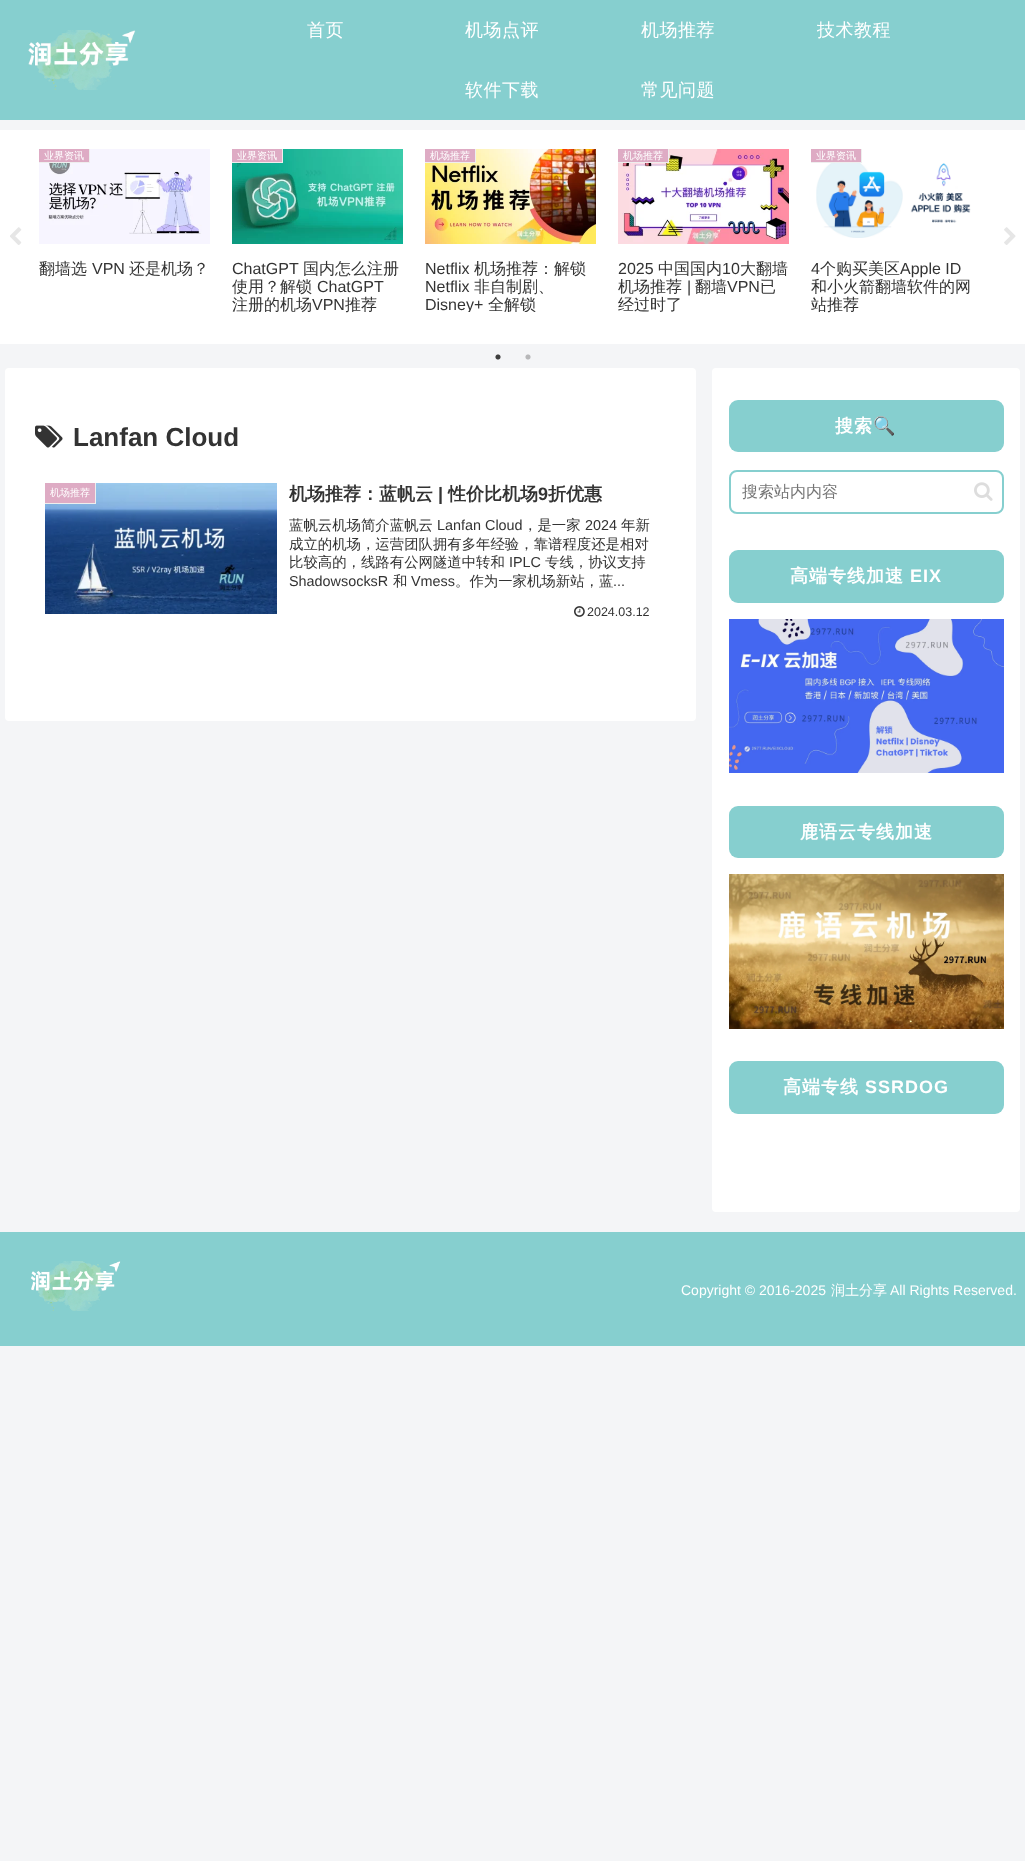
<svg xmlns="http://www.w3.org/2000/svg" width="1025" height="1861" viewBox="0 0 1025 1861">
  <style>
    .t1 { font: 500 18px WenQuanYi Zen Hei; letter-spacing: 0.5px; fill: #fff; }
    .t2 { font: 500 10px WenQuanYi Zen Hei; fill: #fff; }
    .t3 { font: 500 16px WenQuanYi Zen Hei; fill: #333; }
    .t4 { font: 16px Liberation Sans; fill: #333; }
    .t5 { font: bold 26px Liberation Sans; fill: #333; }
    .t6 { font: bold 18px WenQuanYi Zen Hei; fill: #333; }
    .t7 { font: bold 18px Liberation Sans; fill: #333; }
    .t8 { font: 500 14.4px WenQuanYi Zen Hei; fill: #333; }
    .t9 { font: 14.4px Liberation Sans; fill: #333; }
    .t10 { font: 12.5px Liberation Sans; fill: #333; }
    .t11 { font: bold 18px WenQuanYi Zen Hei; letter-spacing: 1px; fill: #fff; }
    .t12 { font: bold 18px Noto Color Emoji; letter-spacing: 1px; fill: #fff; }
    .t13 { font: 500 16px WenQuanYi Zen Hei; fill: #757575; }
    .t14 { font: bold 18px Liberation Sans; letter-spacing: 1px; fill: #fff; }
    .t15 { font: 14px Liberation Sans; fill: #fff; }
    .t16 { font: 500 14px WenQuanYi Zen Hei; fill: #fff; }
  </style>
  <defs>
    <clipPath id="clip1"><rect x="425" y="260" width="171" height="52"/></clipPath>
  </defs>
  <rect width="100%" height="100%" fill="#f4f5f7"/>
  <rect x="0" y="0" width="1025" height="120" fill="#86cfcf"/>
  <image x="28" y="30" width="108" height="60" href="images/1.png"/>
  <text x="307" y="36" class="t1">首页</text>
  <text x="465" y="36" class="t1">机场点评</text>
  <text x="641" y="36" class="t1">机场推荐</text>
  <text x="817" y="36" class="t1">技术教程</text>
  <text x="465" y="96" class="t1">软件下载</text>
  <text x="641" y="96" class="t1">常见问题</text>
  <rect x="0" y="130" width="1025" height="214" fill="#fff"/>
  <image x="10" y="227" width="12" height="18" href="images/2.png"/>
  <image x="39" y="149" width="171" height="95" href="images/3.png"/>
  <rect x="39" y="149" width="50" height="13" fill="#deabc4"/>
  <rect x="89" y="149" width="1" height="14" fill="#eee"/>
  <rect x="39" y="162" width="51" height="1" fill="#eee"/>
  <text x="44" y="159" class="t2">业界资讯</text>
  <text x="39" y="274" class="t3">翻墙选</text>
  <text x="92" y="274" class="t4">VPN</text>
  <text x="129" y="274" class="t3">还是机场？</text>
  <image x="232" y="149" width="171" height="95" href="images/4.png"/>
  <rect x="232" y="149" width="50" height="13" fill="#deabc4"/>
  <rect x="282" y="149" width="1" height="14" fill="#eee"/>
  <rect x="232" y="162" width="51" height="1" fill="#eee"/>
  <text x="237" y="159" class="t2">业界资讯</text>
  <text x="232" y="274" class="t4">ChatGPT</text>
  <text x="303" y="274" class="t3">国内怎么注册</text>
  <text x="232" y="292" class="t3">使用？解锁</text>
  <text x="317" y="292" class="t4">ChatGPT</text>
  <text x="232" y="310" class="t3">注册的机场</text>
  <text x="312" y="310" class="t4">VPN</text>
  <text x="345" y="310" class="t3">推荐</text>
  <image x="425" y="149" width="171" height="95" href="images/5.png"/>
  <rect x="425" y="149" width="50" height="13" fill="#deabc4"/>
  <rect x="475" y="149" width="1" height="14" fill="#eee"/>
  <rect x="425" y="162" width="51" height="1" fill="#eee"/>
  <text x="430" y="159" class="t2">机场推荐</text>
  <text x="425" y="274" class="t4">Netflix</text>
  <text x="474" y="274" class="t3">机场推荐：解锁</text>
  <text x="425" y="292" class="t4">Netflix</text>
  <text x="474" y="292" class="t3">非自制剧、</text>
  <g clip-path="url(#clip1)">
    <text x="425" y="310" class="t4">Disney+</text>
    <text x="488" y="310" class="t3">全解锁</text>
  </g>
  <image x="618" y="149" width="171" height="95" href="images/6.png"/>
  <rect x="618" y="149" width="50" height="13" fill="#deabc4"/>
  <rect x="668" y="149" width="1" height="14" fill="#eee"/>
  <rect x="618" y="162" width="51" height="1" fill="#eee"/>
  <text x="623" y="159" class="t2">机场推荐</text>
  <text x="618" y="274" class="t4">2025</text>
  <text x="658" y="274" class="t3">中国国内</text>
  <text x="722" y="274" class="t4">10</text>
  <text x="740" y="274" class="t3">大翻墙</text>
  <text x="618" y="292" class="t3">机场推荐</text>
  <text x="687" y="292" class="t4">|</text>
  <text x="695" y="292" class="t3">翻墙</text>
  <text x="727" y="292" class="t4">VPN</text>
  <text x="760" y="292" class="t3">已</text>
  <text x="618" y="310" class="t3">经过时了</text>
  <image x="816" y="158" width="155" height="80" href="images/7.png"/>
  <rect x="811" y="149" width="50" height="13" fill="#deabc4"/>
  <rect x="861" y="149" width="1" height="14" fill="#eee"/>
  <rect x="811" y="162" width="51" height="1" fill="#eee"/>
  <text x="816" y="159" class="t2">业界资讯</text>
  <text x="811" y="274" class="t4">4</text>
  <text x="820" y="274" class="t3">个购买美区</text>
  <text x="900" y="274" class="t4">Apple ID</text>
  <text x="811" y="292" class="t3">和小火箭翻墙软件的网</text>
  <text x="811" y="310" class="t3">站推荐</text>
  <image x="1004" y="227" width="12" height="18" href="images/8.png"/>
  <image x="495" y="354" width="6" height="6" href="images/9.png"/>
  <image x="525" y="354" width="6" height="6" href="images/10.png"/>
  <rect x="5" y="368" width="691" height="353" rx="4" fill="#fff"/>
  <image x="35" y="425" width="28" height="23" href="images/11.png"/>
  <text x="73" y="446" class="t5">Lanfan Cloud</text>
  <image x="45" y="483" width="232" height="131" href="images/12.png"/>
  <rect x="45" y="483" width="50" height="20" fill="#deabc4"/>
  <rect x="95" y="483" width="1" height="21" fill="#eee"/>
  <rect x="45" y="503" width="51" height="1" fill="#eee"/>
  <text x="50" y="496" class="t2">机场推荐</text>
  <text x="289" y="500" class="t6">机场推荐：蓝帆云</text>
  <text x="438" y="500" class="t7">|</text>
  <text x="448" y="500" class="t6">性价比机场</text>
  <text x="538" y="500" class="t7">9</text>
  <text x="548" y="500" class="t6">折优惠</text>
  <text x="289" y="530" class="t8">蓝帆云机场简介蓝帆云</text>
  <text x="437" y="530" class="t9">Lanfan Cloud</text>
  <text x="523" y="530" class="t8">，是一家</text>
  <text x="585" y="530" class="t9">2024</text>
  <text x="621" y="530" class="t8">年新</text>
  <text x="289" y="549" class="t8">成立的机场，运营团队拥有多年经验，靠谱程度还是相对</text>
  <text x="289" y="567" class="t8">比较高的，线路有公网隧道中转和</text>
  <text x="509" y="567" class="t9">IPLC</text>
  <text x="545" y="567" class="t8">专线，协议支持</text>
  <text x="289" y="586" class="t9">ShadowsocksR</text>
  <text x="393" y="586" class="t8">和</text>
  <text x="411" y="586" class="t9">Vmess</text>
  <text x="455" y="586" class="t8">。作为一家机场新站，蓝</text>
  <text x="613" y="586" class="t9">...</text>
  <image x="574" y="606" width="11" height="11" href="images/13.png"/>
  <text x="587" y="616" class="t10">2024.03.12</text>
  <rect x="712" y="368" width="308" height="844" rx="4" fill="#fff"/>
  <rect x="729" y="400" width="275" height="52" rx="9" fill="#86cfcf"/>
  <text x="835" y="432" class="t11">搜索</text>
  <text x="873" y="432" class="t12">🔍</text>
  <rect x="730" y="471" width="273" height="42" rx="7" fill="none" stroke="#86cfcf" stroke-width="2"/>
  <text x="742" y="497" class="t13">搜索站内内容</text>
  <image x="974" y="482" width="19" height="19" href="images/14.png"/>
  <rect x="729" y="550" width="275" height="53" rx="9" fill="#86cfcf"/>
  <text x="790" y="582" class="t11">高端专线加速</text>
  <text x="910" y="582" class="t14">EIX</text>
  <image x="729" y="619" width="275" height="154" href="images/15.png"/>
  <rect x="729" y="806" width="275" height="52" rx="9" fill="#86cfcf"/>
  <text x="800" y="838" class="t11">鹿语云专线加速</text>
  <image x="729" y="874" width="275" height="155" href="images/16.png"/>
  <rect x="729" y="1061" width="275" height="53" rx="9" fill="#86cfcf"/>
  <text x="783" y="1093" class="t11">高端专线</text>
  <text x="865" y="1093" class="t14">SSRDOG</text>
  <rect x="0" y="1232" width="1025" height="114" fill="#86cfcf"/>
  <image x="30" y="1261" width="91" height="50" href="images/17.png"/>
  <text x="681" y="1295" class="t15">Copyright © 2016-2025</text>
  <text x="831" y="1295" class="t16">润土分享</text>
  <text x="890" y="1295" class="t15">All Rights Reserved.</text>
</svg>
